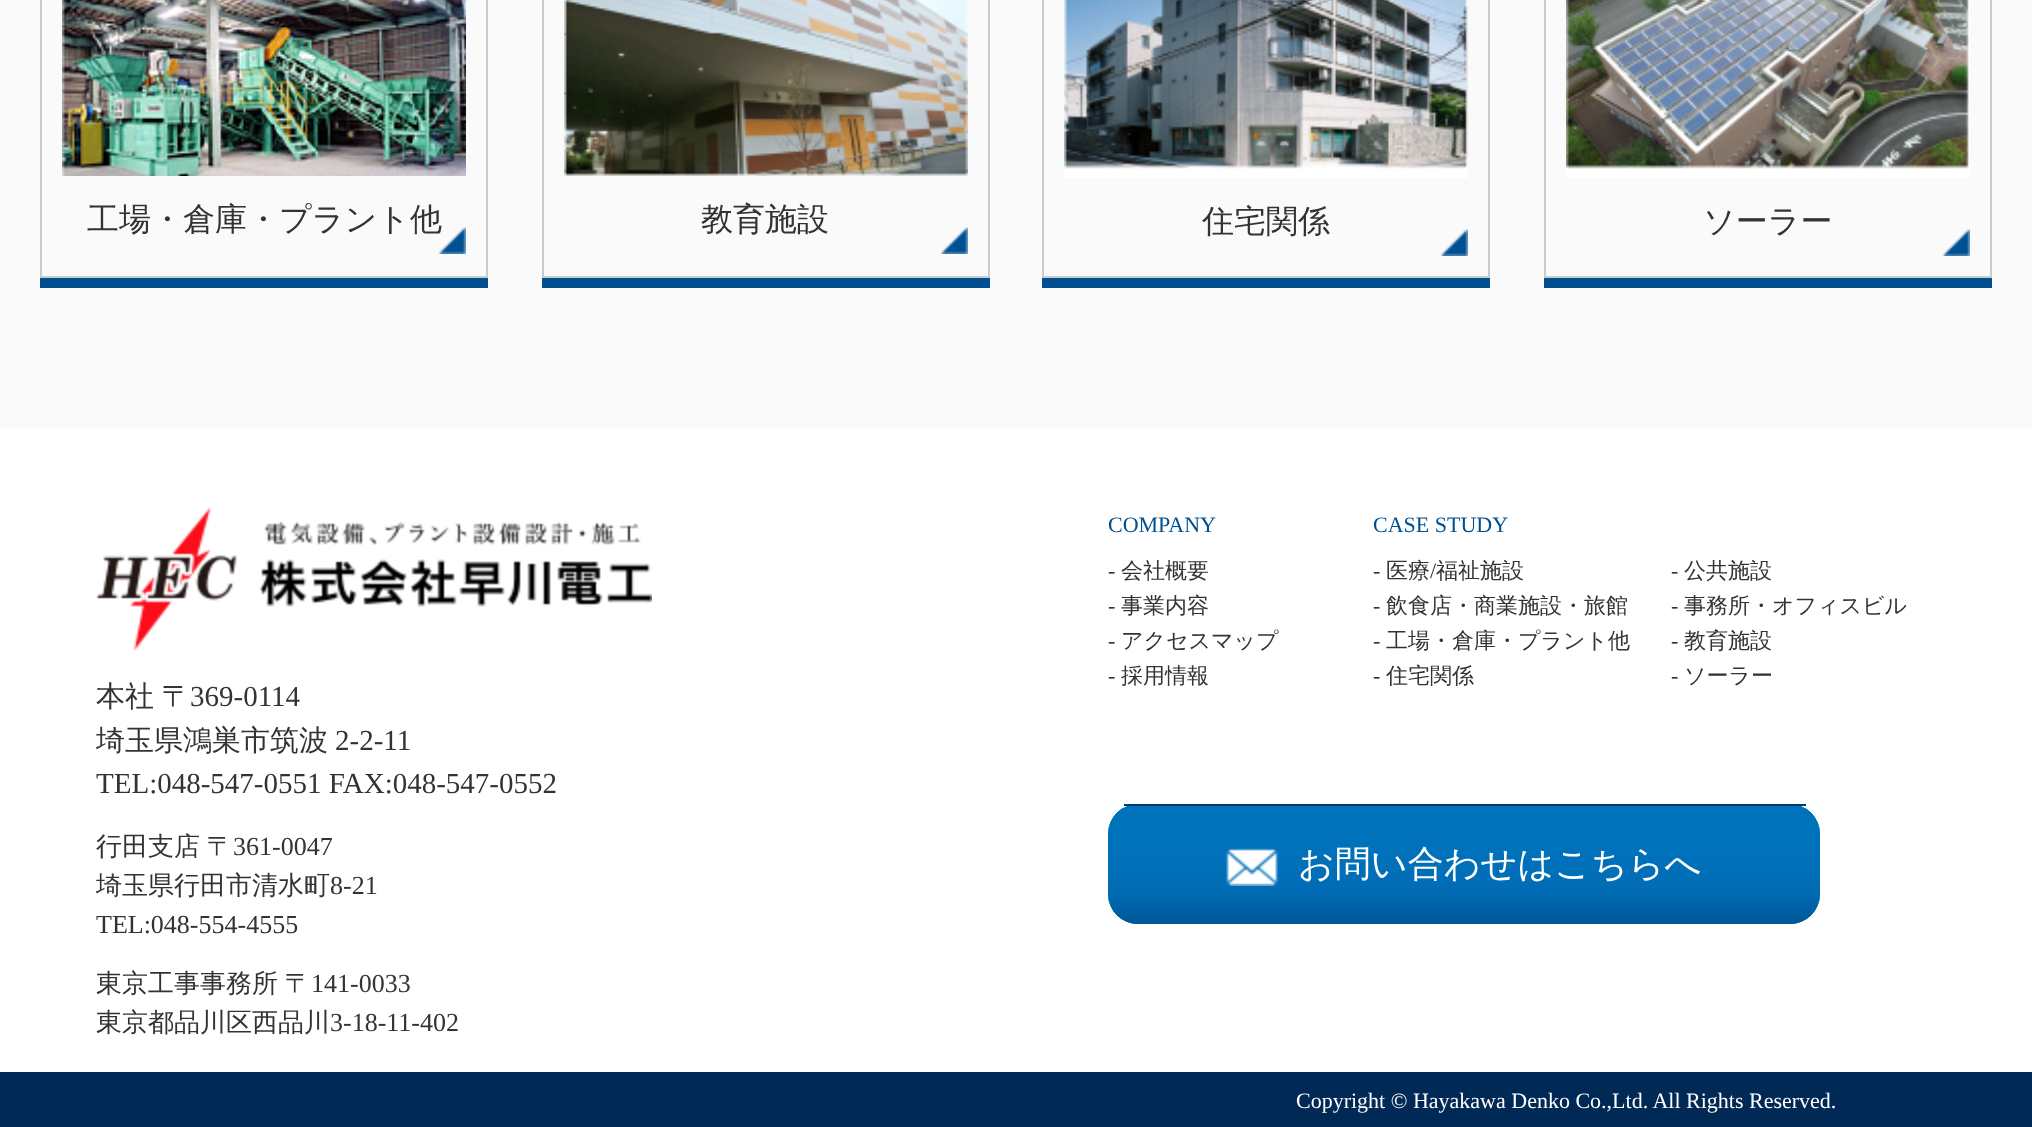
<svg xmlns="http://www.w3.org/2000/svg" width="2032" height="1127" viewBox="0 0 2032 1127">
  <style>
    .t1 { font: 500 32px WenQuanYi Zen Hei; fill: #333; }
    .t2 { font: 500 29px WenQuanYi Zen Hei; fill: #333; }
    .t3 { font: 29px Liberation Serif; fill: #333; }
    .t4 { font: 500 26px WenQuanYi Zen Hei; fill: #333; }
    .t5 { font: 26px Liberation Serif; fill: #333; }
    .t6 { font: 22px Liberation Serif; fill: #005091; }
    .t7 { font: 22px Liberation Serif; fill: #333; }
    .t8 { font: 500 22px WenQuanYi Zen Hei; fill: #333; }
    .t9 { font: 500 36px WenQuanYi Zen Hei; fill: #fff; }
    .t10 { font: 22px Liberation Serif; fill: #fff; }
  </style>
  <rect width="100%" height="100%" fill="#fff"/>
  <rect x="0" y="0" width="2032" height="428" fill="#fbfafa"/>
  <rect x="40" y="278" width="448" height="10" fill="#005091"/>
  <rect x="41" y="-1" width="446" height="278" fill="none" stroke="#cbcbcb" stroke-width="2"/>
  <image x="62" y="0" width="404" height="176" href="images/1.png"/>
  <image x="438" y="226" width="28" height="28" href="images/2.png"/>
  <text x="87" y="230" class="t1">工場・倉庫・プラント他</text>
  <rect x="542" y="278" width="448" height="10" fill="#005091"/>
  <rect x="543" y="-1" width="446" height="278" fill="none" stroke="#cbcbcb" stroke-width="2"/>
  <image x="564" y="0" width="404" height="176" href="images/3.png"/>
  <image x="940" y="226" width="28" height="28" href="images/2.png"/>
  <text x="701" y="230" class="t1">教育施設</text>
  <rect x="1042" y="278" width="448" height="10" fill="#005091"/>
  <rect x="1043" y="-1" width="446" height="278" fill="none" stroke="#cbcbcb" stroke-width="2"/>
  <image x="1064" y="0" width="404" height="178" href="images/4.png"/>
  <image x="1440" y="228" width="28" height="28" href="images/2.png"/>
  <text x="1202" y="232" class="t1">住宅関係</text>
  <rect x="1544" y="278" width="448" height="10" fill="#005091"/>
  <rect x="1545" y="-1" width="446" height="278" fill="none" stroke="#cbcbcb" stroke-width="2"/>
  <image x="1566" y="0" width="404" height="178" href="images/5.png"/>
  <image x="1942" y="228" width="28" height="28" href="images/2.png"/>
  <text x="1703" y="232" class="t1">ソーラー</text>
  <image x="96" y="508" width="556" height="143" href="images/6.png"/>
  <text x="96" y="706" word-spacing="-1" class="t2">本社 〒</text>
  <text x="190" y="706" class="t3">369-0114</text>
  <text x="96" y="750" class="t2">埼玉県鴻巣市筑波</text>
  <text x="335" y="750" class="t3">2-2-11</text>
  <text x="96" y="793" class="t3">TEL:048-547-0551 FAX:048-547-0552</text>
  <text x="96" y="855" word-spacing="-1" class="t4">行田支店 〒</text>
  <text x="233" y="855" class="t5">361-0047</text>
  <text x="96" y="894" class="t4">埼玉県行田市清水町</text>
  <text x="330" y="894" class="t5">8-21</text>
  <text x="96" y="933" class="t5">TEL:048-554-4555</text>
  <text x="96" y="992" word-spacing="-1" class="t4">東京工事事務所 〒</text>
  <text x="311" y="992" class="t5">141-0033</text>
  <text x="96" y="1031" class="t4">東京都品川区西品川</text>
  <text x="330" y="1031" class="t5">3-18-11-402</text>
  <text x="1108" y="532" class="t6">COMPANY</text>
  <text x="1108" y="578" class="t7">-</text>
  <text x="1121" y="578" class="t8">会社概要</text>
  <text x="1108" y="613" class="t7">-</text>
  <text x="1121" y="613" class="t8">事業内容</text>
  <text x="1108" y="648" class="t7">-</text>
  <text x="1121" y="648" class="t8">アクセスマップ</text>
  <text x="1108" y="683" class="t7">-</text>
  <text x="1121" y="683" class="t8">採用情報</text>
  <text x="1373" y="532" class="t6">CASE STUDY</text>
  <text x="1373" y="578" class="t7">-</text>
  <text x="1386" y="578" class="t8">医療</text>
  <text x="1430" y="578" class="t7">/</text>
  <text x="1436" y="578" class="t8">福祉施設</text>
  <text x="1373" y="613" class="t7">-</text>
  <text x="1386" y="613" class="t8">飲食店・商業施設・旅館</text>
  <text x="1373" y="648" class="t7">-</text>
  <text x="1386" y="648" class="t8">工場・倉庫・プラント他</text>
  <text x="1373" y="683" class="t7">-</text>
  <text x="1386" y="683" class="t8">住宅関係</text>
  <text x="1671" y="578" class="t7">-</text>
  <text x="1684" y="578" class="t8">公共施設</text>
  <text x="1671" y="613" class="t7">-</text>
  <text x="1684" y="613" class="t8">事務所・オフィスビル</text>
  <text x="1671" y="648" class="t7">-</text>
  <text x="1684" y="648" class="t8">教育施設</text>
  <text x="1671" y="683" class="t7">-</text>
  <text x="1684" y="683" class="t8">ソーラー</text>
  <rect x="1108" y="804" width="712" height="120" rx="30" fill="#0071bb"/>
  <image x="1108" y="808" width="712" height="116" href="images/7.png"/>
  <rect x="1124" y="804" width="682" height="2" fill="#003c6d"/>
  <image x="1226" y="848" width="52" height="38" href="images/8.png"/>
  <text x="1298" y="876" class="t9">お問い合わせはこちらへ</text>
  <rect x="0" y="1072" width="2032" height="55" fill="#002955"/>
  <text x="1296" y="1108" class="t10">Copyright © Hayakawa Denko Co.,Ltd. All Rights Reserved.</text>
</svg>
